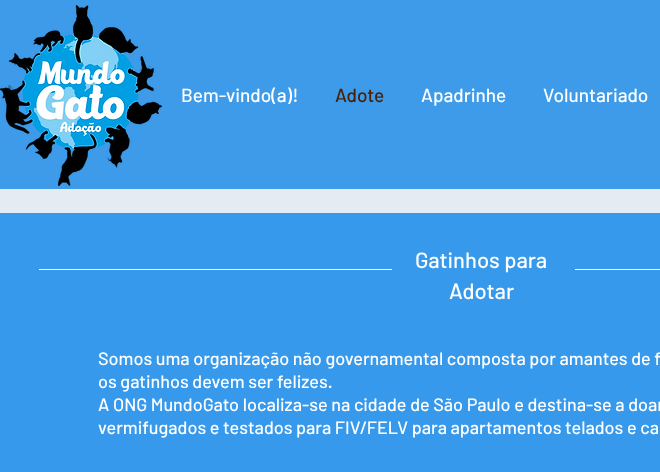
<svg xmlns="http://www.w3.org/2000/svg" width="660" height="472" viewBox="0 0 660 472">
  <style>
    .t1 { font: 500 19px Barlow; fill: #fff; }
    .t2 { font: 500 19px Barlow; fill: #491f05; }
    .t3 { font: 500 22px Barlow; fill: #fff; }
    .t4 { font: 500 18px Barlow; fill: #fff; }
  </style>
  <rect width="100%" height="100%" fill="#3d9be9"/>
  <image x="0" y="5" width="162" height="181" href="images/1.png"/>
  <text x="181" y="102" class="t1">Bem-vindo(a)!</text>
  <text x="335" y="102" class="t2">Adote</text>
  <text x="421" y="102" class="t1">Apadrinhe</text>
  <text x="543" y="102" class="t1">Voluntariado</text>
  <rect x="0" y="213" width="660" height="259" fill="#3699ec"/>
  <rect x="0" y="189" width="660" height="24" fill="#e4ebf3"/>
  <rect x="39" y="269" width="353" height="1" fill="#fff"/>
  <text x="415" y="268" class="t3">Gatinhos para</text>
  <text x="449" y="299" class="t3">Adotar</text>
  <rect x="575" y="269" width="85" height="1" fill="#fff"/>
  <text x="98" y="365" class="t4">Somos uma organização não governamental composta por amantes de f</text>
  <text x="98" y="388" class="t4">os gatinhos devem ser felizes.</text>
  <text x="98" y="411" class="t4">A ONG MundoGato localiza-se na cidade de São Paulo e destina-se a doar</text>
  <text x="98" y="434" class="t4">vermifugados e testados para FIV/FELV para apartamentos telados e ca</text>
</svg>
